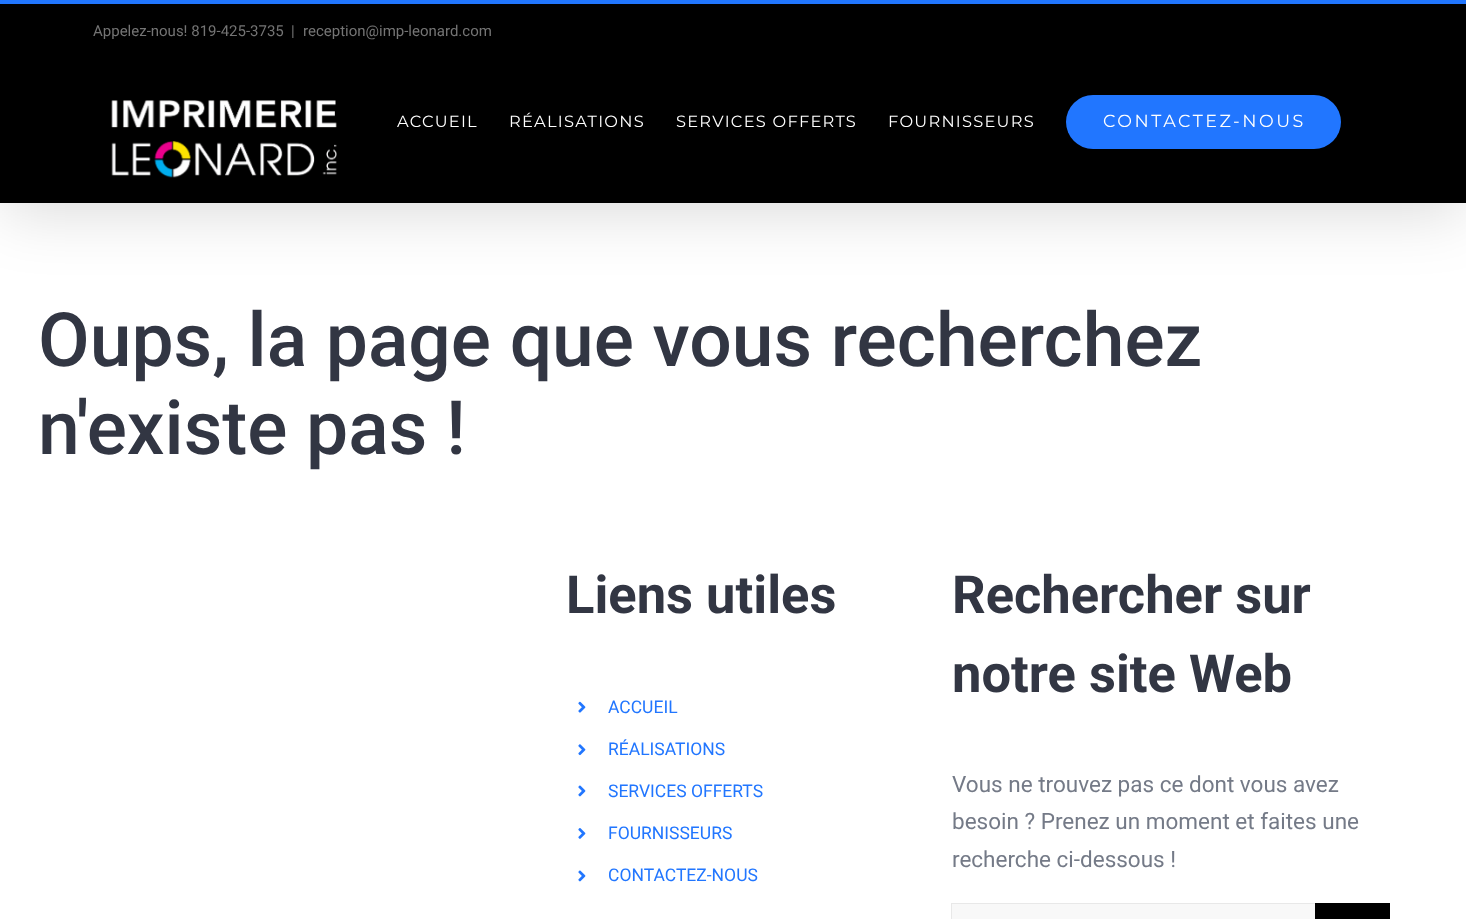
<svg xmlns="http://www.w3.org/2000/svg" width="1466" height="919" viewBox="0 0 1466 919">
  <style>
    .t1 { font: 15px Roboto; fill: #747474; }
    .t2 { font: 100 16.25px Montserrat; letter-spacing: 1.25px; fill: #fff; }
    .t3 { font: 100 17.5px Montserrat; letter-spacing: 2.5px; fill: #fff; }
    .t4 { font: 500 75px Roboto; fill: #323643; }
    .t5 { font: bold 52.5px Roboto; fill: #323643; }
    .t6 { font: 17.5px Roboto; fill: #2176ff; }
    .t7 { font: 22.5px Roboto; fill: #747a87; }
  </style>
  <rect width="100%" height="100%" fill="#fff"/>
  <rect x="3" y="15" width="1461" height="198" fill="#00000024" filter="blur(31px)"/>
  <rect x="0" y="4" width="1466" height="199" fill="#000"/>
  <rect x="0" y="0" width="1466" height="4" fill="#2176ff"/>
  <text x="93" y="36" class="t1">Appelez-nous! 819-425-3735</text>
  <text x="291" y="36" class="t1">|</text>
  <text x="303" y="36" class="t1">reception@imp-leonard.com</text>
  <image x="111" y="100" width="226" height="78" href="images/1.png"/>
  <text x="397" y="127" class="t2">ACCUEIL</text>
  <text x="509" y="127" class="t2">RÉALISATIONS</text>
  <text x="676" y="127" class="t2">SERVICES OFFERTS</text>
  <text x="888" y="127" class="t2">FOURNISSEURS</text>
  <rect x="1066" y="95" width="275" height="54" rx="27" fill="#2176ff"/>
  <text x="1103" y="127" class="t3">CONTACTEZ-NOUS</text>
  <text x="38" y="366" class="t4">Oups, la page que vous recherchez</text>
  <text x="38" y="454" class="t4">n'existe pas !</text>
  <text x="566" y="613" class="t5">Liens utiles</text>
  <image x="578" y="701" width="8" height="12" href="images/2.png"/>
  <text x="608" y="713" class="t6">ACCUEIL</text>
  <image x="578" y="744" width="8" height="12" href="images/3.png"/>
  <text x="608" y="755" class="t6">RÉALISATIONS</text>
  <image x="578" y="785" width="8" height="12" href="images/4.png"/>
  <text x="608" y="797" class="t6">SERVICES OFFERTS</text>
  <image x="578" y="828" width="8" height="11" href="images/5.png"/>
  <text x="608" y="839" class="t6">FOURNISSEURS</text>
  <image x="578" y="870" width="8" height="12" href="images/4.png"/>
  <text x="608" y="881" class="t6">CONTACTEZ-NOUS</text>
  <text x="952" y="613" class="t5">Rechercher sur</text>
  <text x="952" y="692" class="t5">notre site Web</text>
  <text x="952" y="792" class="t7">Vous ne trouvez pas ce dont vous avez</text>
  <text x="952" y="829" class="t7">besoin ? Prenez un moment et faites une</text>
  <text x="952" y="867" class="t7">recherche ci-dessous !</text>
  <rect x="952" y="904" width="363" height="15" fill="#f8f8f8"/>
  <rect x="951" y="903" width="364" height="1" fill="#e8e8e8"/>
  <rect x="951" y="903" width="1" height="16" fill="#e8e8e8"/>
  <rect x="1315" y="903" width="75" height="16" fill="#000"/>
</svg>
